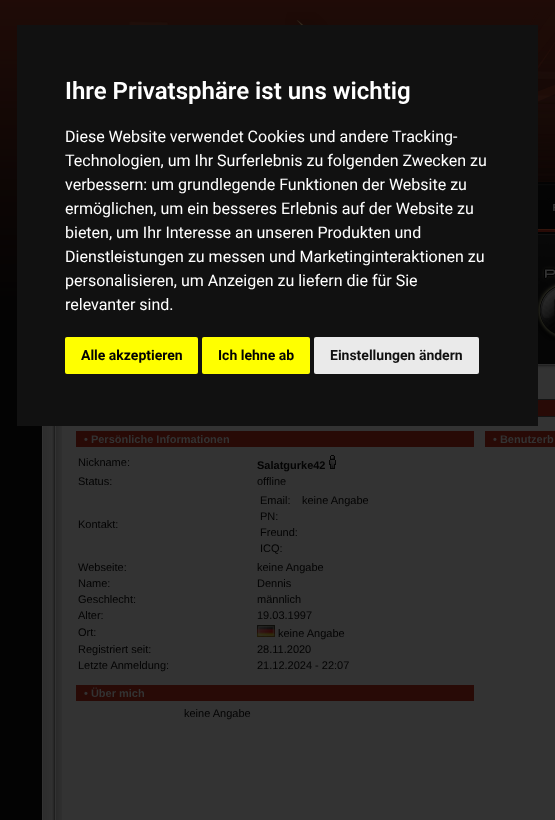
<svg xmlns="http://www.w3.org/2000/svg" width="555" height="820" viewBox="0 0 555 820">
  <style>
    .t1 { font: 600 24px Roboto; fill: #fff; }
    .t2 { font: 16px Roboto; fill: #fff; }
    .t3 { font: bold 14px Roboto; fill: #030303; }
    .t4 { font: bold 14px Roboto; fill: #111; }
    .t5 { font: bold 11px Liberation Sans; fill: #333; }
    .t6 { font: 11px Liberation Sans; fill: #030303; }
    .t7 { font: bold 11px Liberation Sans; fill: #030303; }
  </style>
  <rect width="100%" height="100%" fill="#030303"/>
  <image x="0" y="0" width="555" height="320" href="images/1.png"/>
  <image x="129" y="12" width="426" height="170" href="images/2.png"/>
  <image x="42" y="371" width="513" height="449" href="images/8.png"/>
  <rect x="17" y="25" width="521" height="401" fill="#111"/>
  <text x="65" y="99" class="t1">Ihre Privatsphäre ist uns wichtig</text>
  <text x="65" y="142" class="t2">Diese Website verwendet Cookies und andere Tracking-</text>
  <text x="65" y="166" class="t2">Technologien, um Ihr Surferlebnis zu folgenden Zwecken zu</text>
  <text x="65" y="190" class="t2">verbessern: um grundlegende Funktionen der Website zu</text>
  <text x="65" y="214" class="t2">ermöglichen, um ein besseres Erlebnis auf der Website zu</text>
  <text x="65" y="238" class="t2">bieten, um Ihr Interesse an unseren Produkten und</text>
  <text x="65" y="262" class="t2">Dienstleistungen zu messen und Marketinginteraktionen zu</text>
  <text x="65" y="286" class="t2">personalisieren, um Anzeigen zu liefern die für Sie</text>
  <text x="65" y="310" class="t2">relevanter sind.</text>
  <rect x="65" y="337" width="133" height="37" rx="2" fill="#ff0"/>
  <text x="81" y="360" class="t3">Alle akzeptieren</text>
  <rect x="202" y="337" width="108" height="37" rx="2" fill="#ff0"/>
  <text x="218" y="360" class="t3">Ich lehne ab</text>
  <rect x="314" y="337" width="165" height="37" rx="2" fill="#eaeaea"/>
  <text x="330" y="360" class="t4">Einstellungen ändern</text>
  <image x="538" y="182" width="17" height="2" href="images/3.png"/>
  <image x="538" y="184" width="17" height="45" href="images/4.png"/>
  <image x="538" y="229" width="17" height="36" href="images/5.png"/>
  <image x="538" y="265" width="17" height="76" href="images/6.png"/>
  <image x="538" y="341" width="17" height="30" href="images/7.png"/>
  <rect x="538" y="399" width="17" height="18" fill="#141414"/>
  <rect x="538" y="400" width="17" height="16" fill="#280a06"/>
  <rect x="76" y="431" width="398" height="16" fill="#280a06"/>
  <text x="84" y="443" class="t5">• Persönliche Informationen</text>
  <text x="78" y="466" class="t6">Nickname:</text>
  <text x="257" y="469" class="t7">Salatgurke42</text>
  <image x="329" y="455" width="7" height="14" href="images/9.png"/>
  <text x="78" y="485" class="t6">Status:</text>
  <text x="257" y="485" class="t6">offline</text>
  <text x="78" y="528" class="t6">Kontakt:</text>
  <text x="260" y="504" class="t6">Email:</text>
  <text x="302" y="504" class="t6">keine Angabe</text>
  <text x="260" y="520" class="t6">PN:</text>
  <text x="260" y="536" class="t6">Freund:</text>
  <text x="260" y="552" class="t6">ICQ:</text>
  <text x="78" y="571" class="t6">Webseite:</text>
  <text x="257" y="571" class="t6">keine Angabe</text>
  <text x="78" y="587" class="t6">Name:</text>
  <text x="257" y="587" class="t6">Dennis</text>
  <text x="78" y="603" class="t6">Geschlecht:</text>
  <text x="257" y="603" class="t6">männlich</text>
  <text x="78" y="619" class="t6">Alter:</text>
  <text x="257" y="619" class="t6">19.03.1997</text>
  <text x="78" y="636" class="t6">Ort:</text>
  <image x="257" y="625" width="18" height="12" href="images/10.png"/>
  <text x="278" y="637" class="t6">keine Angabe</text>
  <text x="78" y="653" class="t6">Registriert seit:</text>
  <text x="257" y="653" class="t6">28.11.2020</text>
  <text x="78" y="669" class="t6">Letzte Anmeldung:</text>
  <text x="257" y="669" class="t6">21.12.2024 - 22:07</text>
  <rect x="76" y="685" width="398" height="16" fill="#280a06"/>
  <text x="84" y="697" class="t5">• Über mich</text>
  <text x="184" y="717" class="t6">keine Angabe</text>
  <rect x="485" y="431" width="70" height="16" fill="#280a06"/>
  <text x="493" y="443" class="t5">• Benutzerb</text>
</svg>
